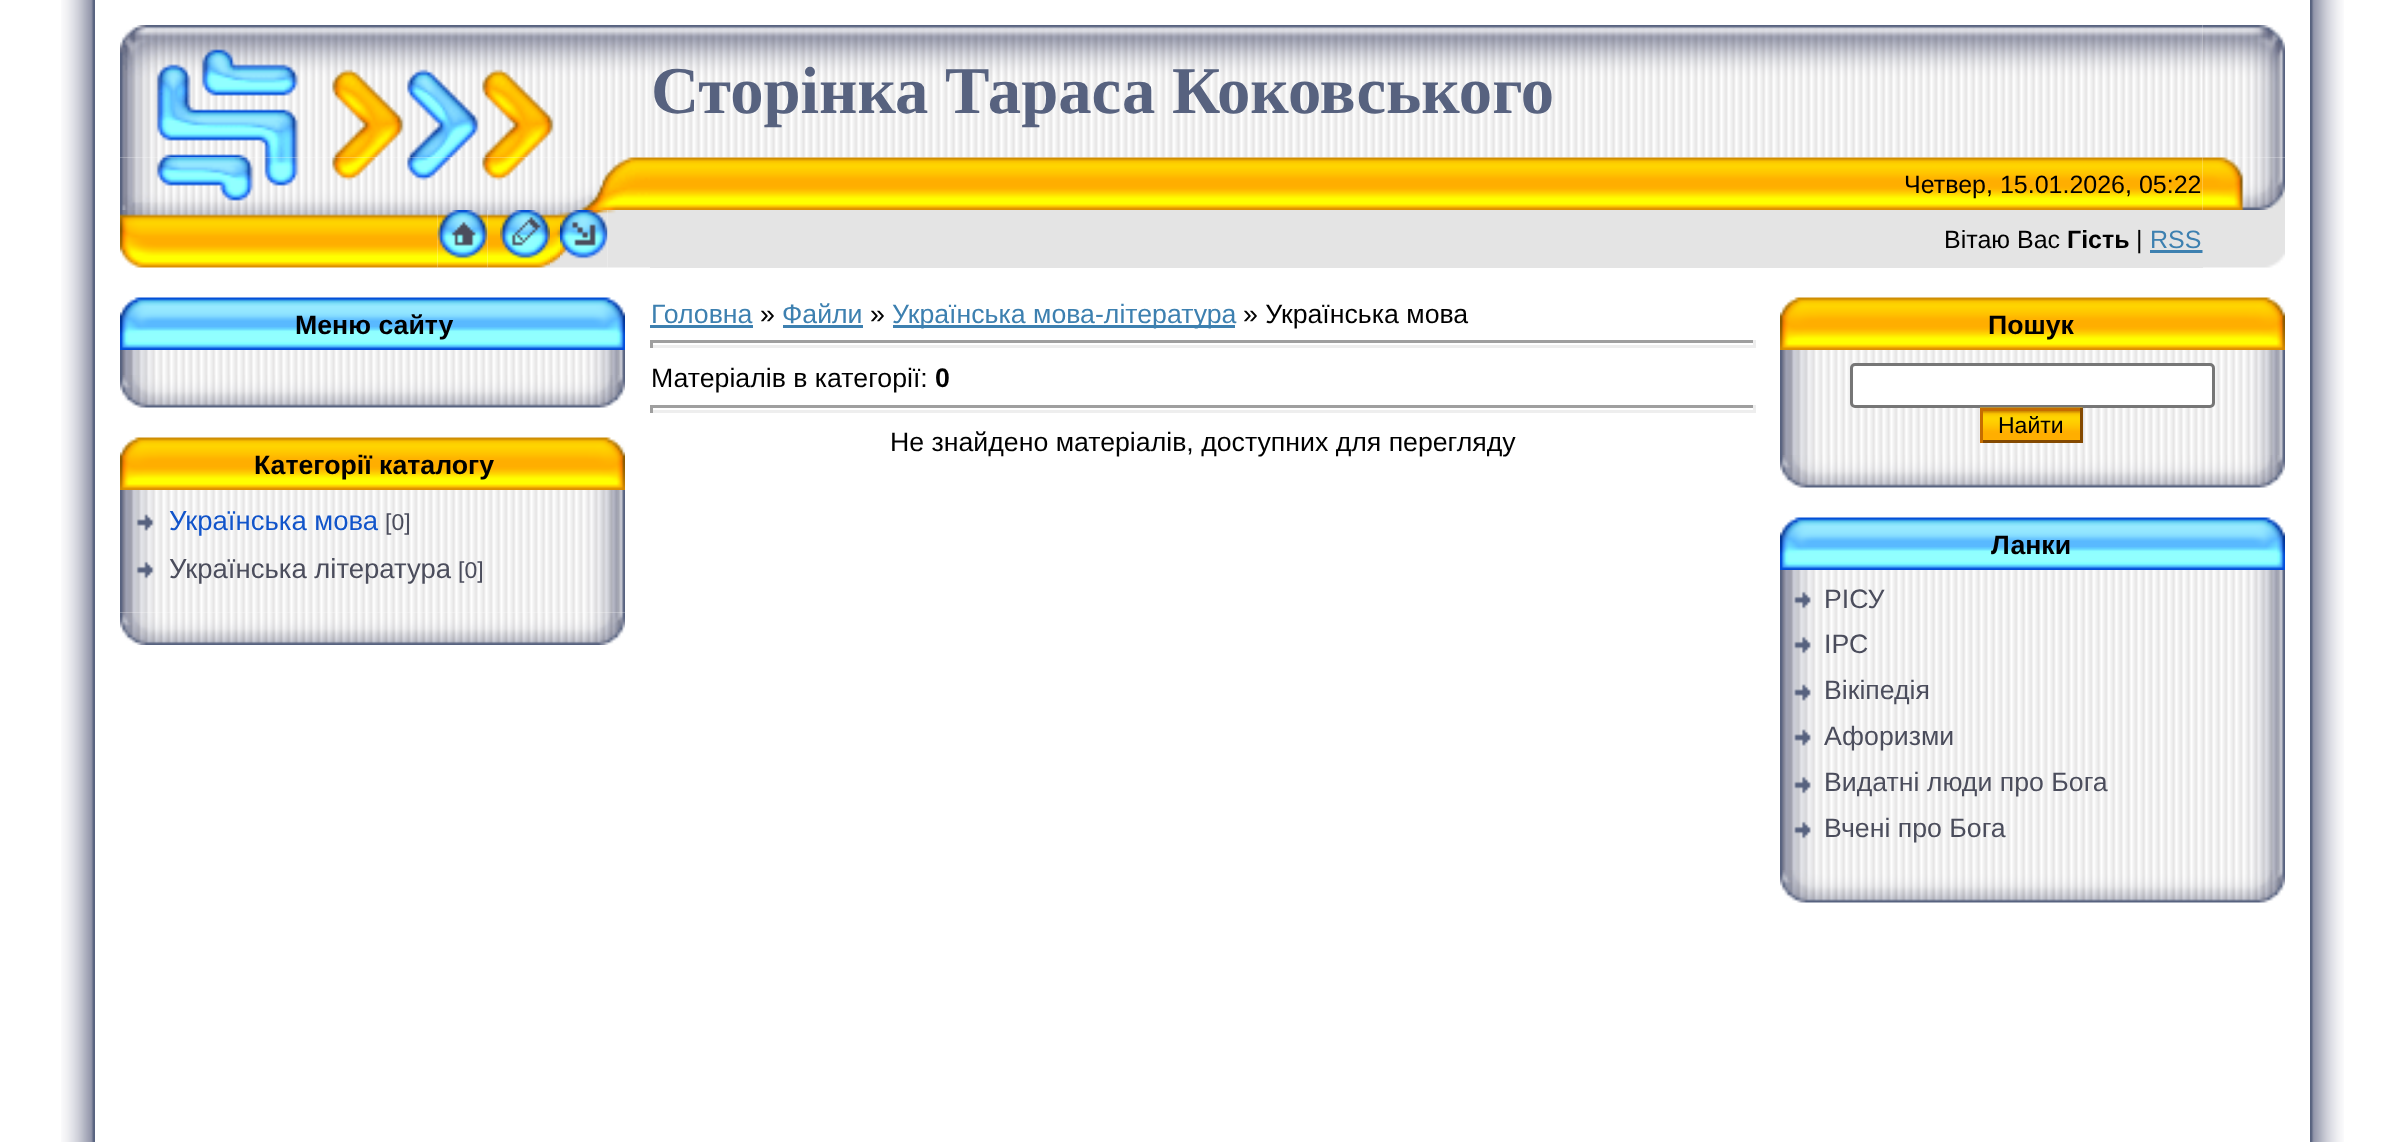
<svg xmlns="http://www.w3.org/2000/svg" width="2405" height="1142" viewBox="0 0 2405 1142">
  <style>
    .t1 { font: bold 66.7px Liberation Serif; fill: #57627f; }
    .t2 { font: 25px Liberation Sans; fill: #000; }
    .t3 { font: bold 25px Liberation Sans; fill: #000; }
    .t4 { font: 25px Liberation Sans; fill: #3d80b0; }
    .t5 { font: bold 26.7px Liberation Sans; fill: #000; }
    .t6 { font: 27.5px Liberation Sans; fill: #1154ca; }
    .t7 { font: 23px Liberation Sans; fill: #4b4d5c; }
    .t8 { font: 27.5px Liberation Sans; fill: #4b4d5c; }
    .t9 { font: 26.7px Liberation Sans; fill: #3d80b0; }
    .t10 { font: 26.7px Liberation Sans; fill: #000; }
    .t11 { font: 23px Liberation Sans; fill: #000; }
    .t12 { font: 26.7px Liberation Sans; fill: #4b4d5c; }
  </style>
  <rect width="100%" height="100%" fill="#fff"/>
  <image x="61" y="0" width="34" height="1142" href="images/1.png"/>
  <image x="120" y="25" width="530" height="133" href="images/2.png"/>
  <image x="650" y="25" width="1553" height="133" href="images/3.png"/>
  <text x="651" y="113" class="t1">Сторінка Тараса Коковського</text>
  <image x="650" y="157" width="1553" height="53" href="images/6.png"/>
  <image x="2202" y="25" width="83" height="133" href="images/4.png"/>
  <image x="120" y="157" width="530" height="53" href="images/5.png"/>
  <text x="1904" y="193" class="t2">Четвер, 15.01.2026, 05:22</text>
  <image x="2202" y="157" width="83" height="53" href="images/7.png"/>
  <image x="120" y="210" width="318" height="58" href="images/8.png"/>
  <image x="437" y="210" width="51" height="58" href="images/9.png"/>
  <image x="487" y="210" width="13" height="58" href="images/10.png"/>
  <image x="500" y="210" width="50" height="58" href="images/11.png"/>
  <image x="550" y="210" width="10" height="58" href="images/12.png"/>
  <image x="560" y="210" width="48" height="58" href="images/13.png"/>
  <image x="607" y="210" width="43" height="58" href="images/14.png"/>
  <rect x="650" y="210" width="1553" height="58" fill="#e4e4e4"/>
  <text x="1944" y="248" class="t2">Вітаю Вас</text>
  <text x="2067" y="248" class="t3">Гість</text>
  <text x="2136" y="248" class="t2">|</text>
  <text x="2150" y="248" class="t4">RSS</text>
  <rect x="2150" y="250" width="53" height="3" fill="#3d80b0"/>
  <image x="2202" y="210" width="83" height="58" href="images/15.png"/>
  <image x="120" y="297" width="505" height="53" href="images/16.png"/>
  <text x="295" y="334" class="t5">Меню сайту</text>
  <image x="120" y="350" width="505" height="25" href="images/17.png"/>
  <image x="120" y="375" width="505" height="33" href="images/18.png"/>
  <image x="120" y="437" width="505" height="53" href="images/19.png"/>
  <text x="254" y="474" class="t5">Категорії каталогу</text>
  <image x="120" y="490" width="505" height="123" href="images/20.png"/>
  <image x="136" y="514" width="18" height="17" href="images/21.png"/>
  <text x="169" y="530" class="t6">Українська мова</text>
  <text x="385" y="530" class="t7">[0]</text>
  <image x="136" y="561" width="18" height="18" href="images/22.png"/>
  <text x="169" y="578" class="t8">Українська література</text>
  <text x="458" y="578" class="t7">[0]</text>
  <image x="120" y="612" width="505" height="33" href="images/23.png"/>
  <text x="651" y="323" class="t9">Головна</text>
  <rect x="650" y="325" width="103" height="3" fill="#3d80b0"/>
  <text x="760" y="323" class="t10">»</text>
  <text x="782" y="323" class="t9">Файли</text>
  <rect x="783" y="325" width="80" height="3" fill="#3d80b0"/>
  <text x="870" y="323" class="t10">»</text>
  <rect x="893" y="325" width="342" height="3" fill="#3d80b0"/>
  <text x="892" y="323" class="t9">Українська мова-література</text>
  <text x="1243" y="323" class="t10">» Українська мова</text>
  <rect x="650" y="340" width="1105" height="3" fill="#9f9f9f"/>
  <rect x="1753" y="340" width="3" height="8" fill="#eee"/>
  <rect x="650" y="345" width="1105" height="3" fill="#eee"/>
  <rect x="650" y="340" width="3" height="8" fill="#9f9f9f"/>
  <text x="651" y="387" class="t10">Матеріалів в категорії:</text>
  <text x="935" y="387" class="t5">0</text>
  <rect x="650" y="405" width="1105" height="3" fill="#9f9f9f"/>
  <rect x="1753" y="405" width="3" height="8" fill="#eee"/>
  <rect x="650" y="410" width="1105" height="3" fill="#eee"/>
  <rect x="650" y="405" width="3" height="8" fill="#9f9f9f"/>
  <text x="890" y="451" class="t10">Не знайдено матеріалів, доступних для перегляду</text>
  <image x="1780" y="297" width="505" height="53" href="images/24.png"/>
  <text x="1988" y="334" class="t5">Пошук</text>
  <image x="1780" y="350" width="505" height="105" href="images/25.png"/>
  <rect x="1851.5" y="364.5" width="362" height="42" rx="3.5" fill="#fff" stroke="#767676" stroke-width="3"/>
  <image x="1980" y="407" width="103" height="33" href="images/26.png"/>
  <rect x="1980" y="408" width="103" height="3" fill="#c66d00"/>
  <rect x="2080" y="408" width="3" height="35" fill="#844900"/>
  <rect x="1980" y="440" width="103" height="3" fill="#844900"/>
  <rect x="1980" y="408" width="3" height="35" fill="#c66d00"/>
  <text x="1998" y="433" class="t11">Найти</text>
  <image x="1780" y="455" width="505" height="33" href="images/27.png"/>
  <image x="1780" y="517" width="505" height="53" href="images/28.png"/>
  <text x="1991" y="554" class="t5">Ланки</text>
  <image x="1780" y="570" width="505" height="300" href="images/29.png"/>
  <image x="1794" y="591" width="17" height="18" href="images/30.png"/>
  <text x="1824" y="608" class="t12">РІСУ</text>
  <image x="1794" y="636" width="17" height="18" href="images/30.png"/>
  <text x="1824" y="653" class="t12">ІРС</text>
  <image x="1794" y="684" width="17" height="17" href="images/31.png"/>
  <text x="1824" y="699" class="t12">Вікіпедія</text>
  <image x="1794" y="729" width="17" height="17" href="images/31.png"/>
  <text x="1824" y="745" class="t12">Афоризми</text>
  <image x="1794" y="776" width="17" height="18" href="images/32.png"/>
  <text x="1824" y="791" class="t12">Видатні люди про Бога</text>
  <image x="1794" y="821" width="17" height="18" href="images/30.png"/>
  <text x="1824" y="837" class="t12">Вчені про Бога</text>
  <image x="1780" y="870" width="505" height="33" href="images/27.png"/>
  <image x="2310" y="0" width="34" height="1142" href="images/33.png"/>
</svg>
